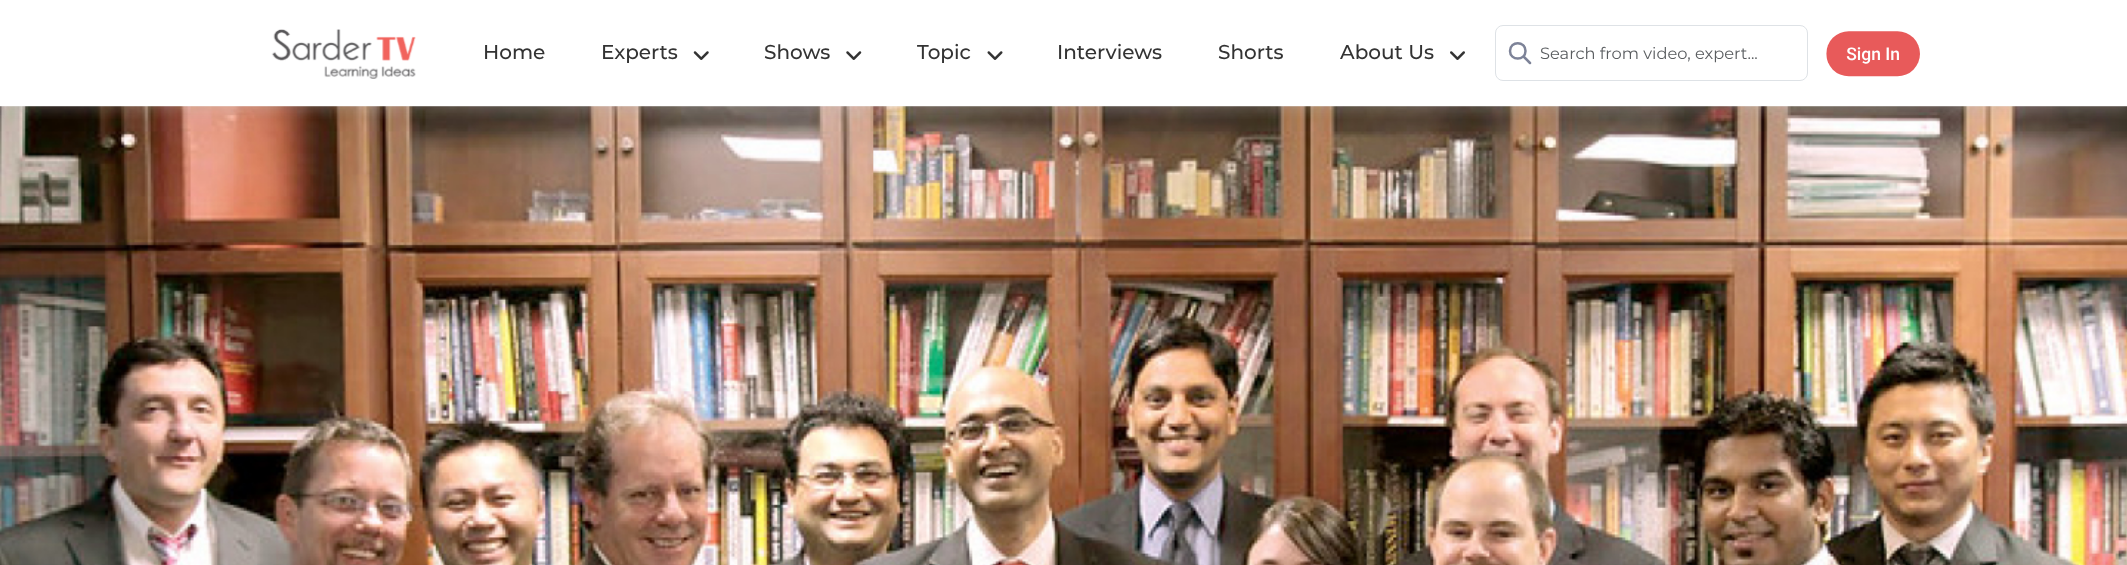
<svg xmlns="http://www.w3.org/2000/svg" width="2127" height="565" viewBox="0 0 2127 565">
  <style>
    .t1 { font: 500 20px Montserrat; fill: #333; }
    .t2 { font: 16.25px Montserrat; fill: #595c5f; }
  </style>
  <defs>
    <clipPath id="clip1"><rect x="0" y="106" width="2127" height="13"/></clipPath>
  </defs>
  <rect width="100%" height="100%" fill="#fff"/>
  <image x="0" y="106" width="2127" height="459" href="images/7.png"/>
  <g clip-path="url(#clip1)">
    <rect x="0" y="5" width="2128" height="106" fill="#c4c4c440" filter="blur(6px)"/>
  </g>
  <image x="271" y="29" width="145" height="50" href="images/1.png"/>
  <text x="483" y="59" class="t1">Home</text>
  <text x="601" y="59" class="t1">Experts</text>
  <image x="693" y="51" width="16" height="9" href="images/2.png"/>
  <text x="764" y="59" class="t1">Shows</text>
  <image x="846" y="51" width="16" height="9" href="images/3.png"/>
  <text x="917" y="59" class="t1">Topic</text>
  <image x="987" y="51" width="16" height="9" href="images/4.png"/>
  <text x="1057" y="59" class="t1">Interviews</text>
  <text x="1218" y="59" class="t1">Shorts</text>
  <text x="1340" y="59" class="t1">About Us</text>
  <image x="1450" y="51" width="15" height="9" href="images/5.png"/>
  <rect x="1495.5" y="25.5" width="312" height="55" rx="7.5" fill="none" stroke="#dee2e6"/>
  <path d="M1530 63L1523.5 56.5M1525.5 51C1525.5 61 1510 61 1510 51C1510 40.5 1525.5 40.5 1525.5 51Z" fill="none" stroke="#7d8398" stroke-width="2.5" stroke-linecap="round" stroke-linejoin="round"/>
  <text x="1540" y="59" class="t2">Search from video, expert...</text>
  <image x="1826" y="31" width="94" height="46" href="images/6.png"/>
</svg>
